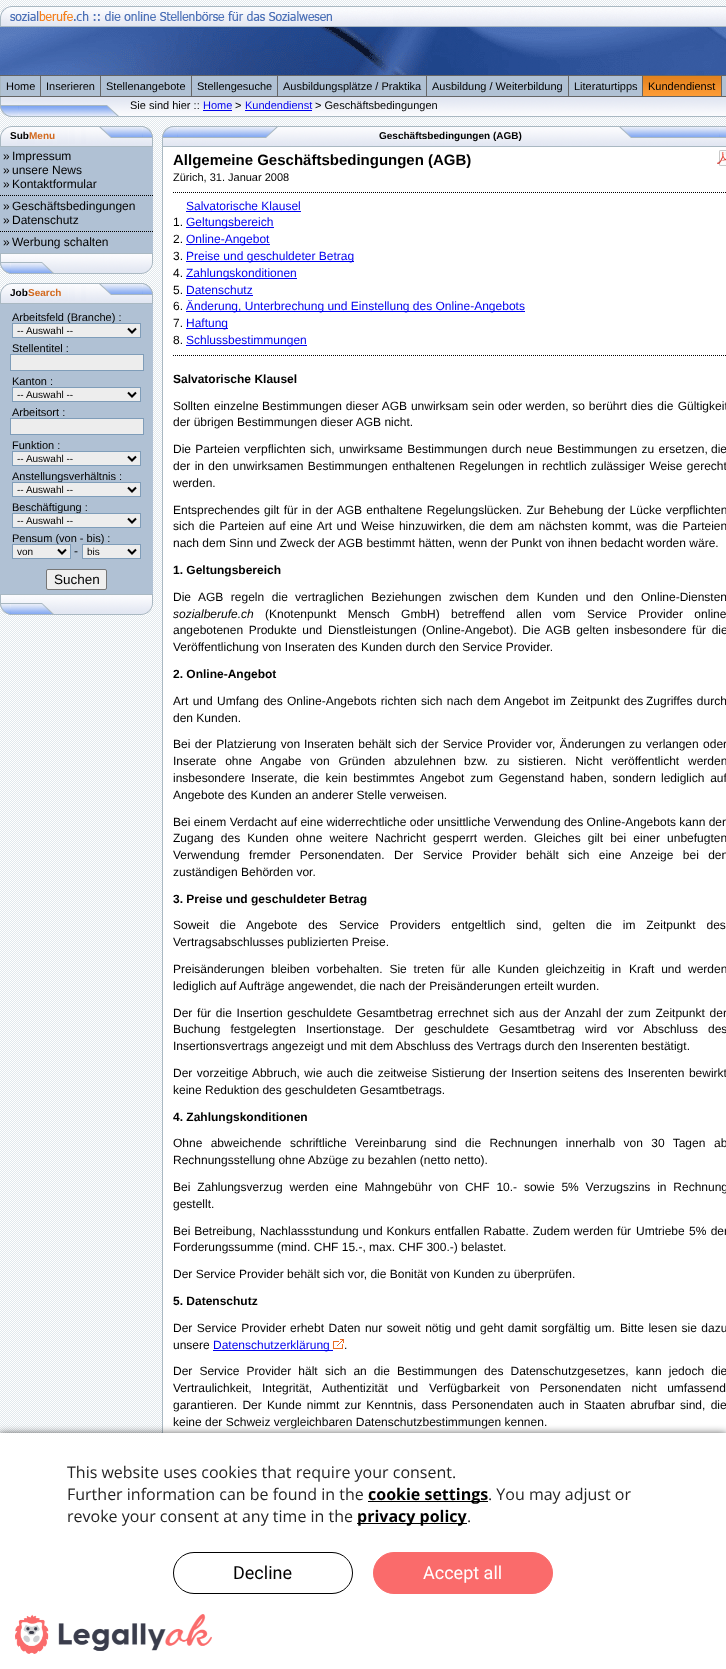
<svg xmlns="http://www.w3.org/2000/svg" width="726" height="1669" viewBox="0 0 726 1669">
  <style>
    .t1 { font: 11px Liberation Sans; fill: #000; }
    .t2 { font: 11px Liberation Sans; fill: #00e; }
    .t3 { font: bold 10px Liberation Sans; fill: #000; }
    .t4 { font: bold 10px Liberation Sans; fill: #d2691e; }
    .t5 { font: 12px Liberation Sans; fill: #000; }
    .t6 { font: 10px Liberation Sans; fill: #000; }
    .t7 { font: 13.5px Liberation Sans; fill: #000; }
    .t8 { font: bold 15px Liberation Sans; fill: #000; }
    .t9 { font: 12px Liberation Sans; fill: #00e; }
    .t10 { font: bold 12px Liberation Sans; fill: #000; }
    .t11 { font: italic 12px Liberation Sans; fill: #000; }
    .t12 { font: 16px Open Sans; fill: #242424; }
    .t13 { font: bold 16px Open Sans; fill: #000; }
    .t14 { font: 18px Roboto; fill: #000; }
    .t15 { font: 18px Roboto; fill: #fff; }
  </style>
  <rect width="100%" height="100%" fill="#fff"/>
  <image x="0" y="0" width="726" height="1433" href="images/1.png"/>
  <image x="0" y="6" width="726" height="69" href="images/2.png"/>
  <rect x="1" y="76" width="725" height="20" fill="#b0c1d4"/>
  <rect x="0" y="75" width="726" height="1" fill="#656565"/>
  <rect x="0" y="96" width="726" height="1" fill="#656565"/>
  <rect x="0" y="76" width="1" height="20" fill="#a9b8c2"/>
  <rect x="40" y="76" width="1" height="20" fill="#656565"/>
  <text x="6" y="90" class="t1">Home</text>
  <rect x="100" y="76" width="1" height="20" fill="#656565"/>
  <text x="46" y="90" class="t1">Inserieren</text>
  <rect x="191" y="76" width="1" height="20" fill="#656565"/>
  <text x="106" y="90" class="t1">Stellenangebote</text>
  <rect x="277" y="76" width="1" height="20" fill="#656565"/>
  <text x="197" y="90" class="t1">Stellengesuche</text>
  <rect x="426" y="76" width="1" height="20" fill="#656565"/>
  <text x="283" y="90" class="t1">Ausbildungsplätze / Praktika</text>
  <rect x="568" y="76" width="1" height="20" fill="#656565"/>
  <text x="432" y="90" class="t1">Ausbildung / Weiterbildung</text>
  <rect x="642" y="76" width="1" height="20" fill="#656565"/>
  <text x="574" y="90" class="t1">Literaturtipps</text>
  <image x="643" y="76" width="78" height="20" href="images/3.png"/>
  <rect x="721" y="76" width="1" height="20" fill="#656565"/>
  <text x="648" y="90" class="t1">Kundendienst</text>
  <image x="0" y="97" width="726" height="20" href="images/4.png"/>
  <text x="130" y="109" class="t1">Sie sind hier ::</text>
  <text x="203" y="109" class="t2">Home</text>
  <rect x="203" y="110" width="29" height="1" fill="#00e"/>
  <text x="235" y="109" class="t1">&gt;</text>
  <text x="245" y="109" class="t2">Kundendienst</text>
  <rect x="245" y="110" width="67" height="1" fill="#00e"/>
  <text x="315" y="109" class="t1">&gt; Geschäftsbedingungen</text>
  <image x="0" y="126" width="153" height="21" href="images/5.png"/>
  <text x="10" y="139" class="t3">Sub</text>
  <text x="29" y="139" class="t4">Menu</text>
  <rect x="0" y="147" width="153" height="106" fill="#b0c1d4"/>
  <text x="3" y="160" class="t5">»</text>
  <text x="12" y="160" class="t5">Impressum</text>
  <text x="3" y="174" class="t5">»</text>
  <text x="12" y="174" class="t5">unsere News</text>
  <text x="3" y="188" class="t5">»</text>
  <text x="12" y="188" class="t5">Kontaktformular</text>
  <path d="M0 195.5H153" fill="none" stroke="#000" stroke-dasharray="1 1"/>
  <text x="3" y="210" class="t5">»</text>
  <text x="12" y="210" class="t5">Geschäftsbedingungen</text>
  <text x="3" y="224" class="t5">»</text>
  <text x="12" y="224" class="t5">Datenschutz</text>
  <path d="M0 231.5H153" fill="none" stroke="#000" stroke-dasharray="1 1"/>
  <text x="3" y="246" class="t5">»</text>
  <text x="12" y="246" class="t5">Werbung schalten</text>
  <image x="0" y="253" width="153" height="21" href="images/6.png"/>
  <image x="0" y="283" width="153" height="21" href="images/7.png"/>
  <text x="10" y="296" class="t3">Job</text>
  <text x="28" y="296" class="t4">Search</text>
  <rect x="0" y="304" width="153" height="290" fill="#b0c1d4"/>
  <text x="12" y="321" class="t1">Arbeitsfeld (Branche) :</text>
  <rect x="12.5" y="323.5" width="128" height="14" fill="#ededed" stroke="#7f9db9"/>
  <path d="M128 328.5L132 332.5L136 328.5" fill="none" stroke="#000" stroke-width="2"/>
  <text x="17" y="334" class="t6">-- Auswahl --</text>
  <text x="12" y="352" class="t1">Stellentitel :</text>
  <rect x="10.5" y="354.5" width="133" height="16" fill="#ededed" stroke="#7f9db9"/>
  <text x="12" y="385" class="t1">Kanton :</text>
  <rect x="12.5" y="387.5" width="128" height="14" fill="#ededed" stroke="#7f9db9"/>
  <path d="M128 392.5L132 396.5L136 392.5" fill="none" stroke="#000" stroke-width="2"/>
  <text x="17" y="398" class="t6">-- Auswahl --</text>
  <text x="12" y="416" class="t1">Arbeitsort :</text>
  <rect x="10.5" y="418.5" width="133" height="16" fill="#ededed" stroke="#7f9db9"/>
  <text x="12" y="449" class="t1">Funktion :</text>
  <rect x="12.5" y="451.5" width="128" height="14" fill="#ededed" stroke="#7f9db9"/>
  <path d="M128 456.5L132 460.5L136 456.5" fill="none" stroke="#000" stroke-width="2"/>
  <text x="17" y="462" class="t6">-- Auswahl --</text>
  <text x="12" y="480" class="t1">Anstellungsverhältnis :</text>
  <rect x="12.5" y="482.5" width="128" height="14" fill="#ededed" stroke="#7f9db9"/>
  <path d="M128 487.5L132 491.5L136 487.5" fill="none" stroke="#000" stroke-width="2"/>
  <text x="17" y="493" class="t6">-- Auswahl --</text>
  <text x="12" y="511" class="t1">Beschäftigung :</text>
  <rect x="12.5" y="513.5" width="128" height="14" fill="#ededed" stroke="#7f9db9"/>
  <path d="M128 518.5L132 522.5L136 518.5" fill="none" stroke="#000" stroke-width="2"/>
  <text x="17" y="524" class="t6">-- Auswahl --</text>
  <text x="12" y="542" class="t1">Pensum (von - bis) :</text>
  <rect x="12.5" y="544.5" width="58" height="14" fill="#ededed" stroke="#7f9db9"/>
  <path d="M58 549.5L62 553.5L66 549.5" fill="none" stroke="#000" stroke-width="2"/>
  <text x="17" y="555" class="t6">von</text>
  <text x="74" y="555" class="t5">-</text>
  <rect x="82.5" y="544.5" width="58" height="14" fill="#ededed" stroke="#7f9db9"/>
  <path d="M128 549.5L132 553.5L136 549.5" fill="none" stroke="#000" stroke-width="2"/>
  <text x="87" y="555" class="t6">bis</text>
  <rect x="46.5" y="569.5" width="60" height="20" rx="1.5" fill="#efefef" stroke="#767676"/>
  <text x="54" y="584" class="t7">Suchen</text>
  <image x="0" y="594" width="153" height="21" href="images/8.png"/>
  <image x="162" y="126" width="564" height="21" href="images/9.png"/>
  <text x="379" y="139" class="t3">Geschäftsbedingungen (AGB)</text>
  <rect x="163" y="147" width="563" height="1286" fill="#fff"/>
  <image x="717" y="150" width="9" height="16" href="images/10.png"/>
  <rect x="162" y="147" width="1" height="1286" fill="#a9b8c2"/>
  <text x="173" y="165" class="t8">Allgemeine Geschäftsbedingungen (AGB)</text>
  <text x="173" y="181" class="t1">Zürich, 31. Januar 2008</text>
  <path d="M173 192.5H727" fill="none" stroke="#000" stroke-dasharray="1 1"/>
  <text x="186" y="210" class="t9">Salvatorische Klausel</text>
  <rect x="186" y="211" width="115" height="1" fill="#00e"/>
  <text x="173" y="226" class="t5">1.</text>
  <rect x="186" y="227" width="88" height="1" fill="#00e"/>
  <text x="186" y="226" class="t9">Geltungsbereich</text>
  <text x="173" y="243" class="t5">2.</text>
  <rect x="186" y="244" width="84" height="1" fill="#00e"/>
  <text x="186" y="243" class="t9">Online-Angebot</text>
  <text x="173" y="260" class="t5">3.</text>
  <rect x="186" y="261" width="168" height="1" fill="#00e"/>
  <text x="186" y="260" class="t9">Preise und geschuldeter Betrag</text>
  <text x="173" y="277" class="t5">4.</text>
  <rect x="186" y="278" width="111" height="1" fill="#00e"/>
  <text x="186" y="277" class="t9">Zahlungskonditionen</text>
  <text x="173" y="294" class="t5">5.</text>
  <text x="186" y="294" class="t9">Datenschutz</text>
  <rect x="186" y="295" width="67" height="1" fill="#00e"/>
  <text x="173" y="310" class="t5">6.</text>
  <rect x="186" y="311" width="339" height="1" fill="#00e"/>
  <text x="186" y="310" class="t9">Änderung, Unterbrechung und Einstellung des Online-Angebots</text>
  <text x="173" y="327" class="t5">7.</text>
  <rect x="186" y="328" width="42" height="1" fill="#00e"/>
  <text x="186" y="327" class="t9">Haftung</text>
  <text x="173" y="344" class="t5">8.</text>
  <rect x="186" y="345" width="121" height="1" fill="#00e"/>
  <text x="186" y="344" class="t9">Schlussbestimmungen</text>
  <path d="M173 355.5H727" fill="none" stroke="#000" stroke-dasharray="1 1"/>
  <text x="173" y="383" class="t10">Salvatorische Klausel</text>
  <text x="173" y="410" word-spacing="1" class="t5">Sollten einzelne</text>
  <text x="262" y="410" word-spacing="0.5" class="t5">Bestimmungen dieser AGB unwirksam sein oder werden, so berührt</text>
  <text x="631" y="410" word-spacing="1" class="t5">dies die Gültigkeit</text>
  <text x="173" y="426" class="t5">der übrigen Bestimmungen dieser AGB nicht.</text>
  <text x="173" y="453" word-spacing="1" class="t5">Die Parteien verpflichten</text>
  <text x="310" y="453" word-spacing="1" class="t5">sich, unwirksame Bestimmungen durch neue Bestimmungen zu ersetzen,</text>
  <text x="711" y="453" class="t5">die</text>
  <text x="173" y="470" word-spacing="1" class="t5">der in den unwirksamen Bestimmungen enthaltenen Regelungen in</text>
  <text x="542" y="470" word-spacing="1" class="t5">rechtlich zulässiger Weise gerecht</text>
  <text x="173" y="487" class="t5">werden.</text>
  <text x="173" y="514" word-spacing="1" class="t5">Entsprechendes gilt für</text>
  <text x="302" y="514" word-spacing="1" class="t5">in der AGB enthaltene Regelungslücken. Zur Behebung der Lücke</text>
  <text x="666" y="514" class="t5">verpflichten</text>
  <text x="173" y="530" word-spacing="1.25" class="t5">sich die Parteien auf eine Art und Weise hinzuwirken,</text>
  <text x="469" y="530" word-spacing="1.25" class="t5">die dem am nächsten kommt, was die Parteien</text>
  <text x="173" y="547" class="t5">nach dem Sinn und Zweck der AGB bestimmt hätten, wenn der Punkt von ihnen bedacht worden wäre.</text>
  <text x="173" y="574" class="t10">1. Geltungsbereich</text>
  <text x="173" y="601" word-spacing="4.25" class="t5">Die AGB regeln die</text>
  <text x="295" y="601" word-spacing="4.25" class="t5">vertraglichen Beziehungen zwischen dem Kunden und den Online-Diensten</text>
  <text x="173" y="618" class="t11">sozialberufe.ch</text>
  <text x="265" y="618" word-spacing="8" class="t5">(Knotenpunkt Mensch GmbH) betreffend allen vom</text>
  <text x="587" y="618" word-spacing="8" class="t5">Service Provider online</text>
  <text x="173" y="634" word-spacing="2.25" class="t5">angebotenen Produkte und Dienstleistungen</text>
  <text x="422" y="634" word-spacing="2.25" class="t5">(Online-Angebot). Die AGB gelten insbesondere für die</text>
  <text x="173" y="651" class="t5">Veröffentlichung von Inseraten des Kunden durch den Service Provider.</text>
  <text x="173" y="678" class="t10">2. Online-Angebot</text>
  <text x="173" y="705" word-spacing="1" class="t5">Art und Umfang des</text>
  <text x="287" y="705" word-spacing="1" class="t5">Online-Angebots richten sich nach dem Angebot im Zeitpunkt des</text>
  <text x="646" y="705" word-spacing="1" class="t5">Zugriffes durch</text>
  <text x="173" y="722" class="t5">den Kunden.</text>
  <text x="173" y="748" word-spacing="1" class="t5">Bei der Platzierung von</text>
  <text x="304" y="748" word-spacing="1" class="t5">Inseraten behält sich der Service Provider vor, Änderungen</text>
  <text x="629" y="748" word-spacing="1" class="t5">zu verlangen oder</text>
  <text x="173" y="765" word-spacing="5.5" class="t5">Inserate ohne Angabe von Gründen abzulehnen</text>
  <text x="464" y="765" word-spacing="5.5" class="t5">bzw. zu sistieren. Nicht veröffentlicht werden</text>
  <text x="173" y="782" class="t5">insbesondere</text>
  <text x="251" y="782" word-spacing="2.5" class="t5">Inserate, die kein bestimmtes Angebot zum Gegenstand haben, sondern</text>
  <text x="661" y="782" word-spacing="2.5" class="t5">lediglich auf</text>
  <text x="173" y="799" class="t5">Angebote des Kunden an anderer Stelle verweisen.</text>
  <text x="173" y="826" class="t5">Bei einem Verdacht auf eine widerrechtliche oder unsittliche Verwendung des Online-Angebots kann der</text>
  <text x="173" y="842" word-spacing="3.75" class="t5">Zugang des Kunden ohne weitere Nachricht gesperrt werden.</text>
  <text x="534" y="842" word-spacing="3.75" class="t5">Gleiches gilt bei einer unbefugten</text>
  <text x="173" y="859" word-spacing="6" class="t5">Verwendung fremder Personendaten.</text>
  <text x="394" y="859" word-spacing="6" class="t5">Der Service Provider behält sich eine Anzeige bei den</text>
  <text x="173" y="876" class="t5">zuständigen Behörden vor.</text>
  <text x="173" y="903" class="t10">3. Preise und geschuldeter Betrag</text>
  <text x="173" y="929" word-spacing="7.5" class="t5">Soweit die Angebote des</text>
  <text x="339" y="929" word-spacing="7.5" class="t5">Service Providers entgeltlich sind, gelten die im Zeitpunkt des</text>
  <text x="173" y="946" class="t5">Vertragsabschlusses publizierten Preise.</text>
  <text x="173" y="973" class="t5">Preisänderungen</text>
  <text x="271" y="973" word-spacing="3.5" class="t5">bleiben vorbehalten. Sie treten für alle Kunden gleichzeitig in</text>
  <text x="629" y="973" word-spacing="3.5" class="t5">Kraft und werden</text>
  <text x="173" y="990" class="t5">lediglich auf Aufträge angewendet, die nach der Preisänderungen erteilt wurden.</text>
  <text x="173" y="1017" word-spacing="1.4" class="t5">Der für die Insertion geschuldete Gesamtbetrag errechnet sich aus der Anzahl der zum Zeitpunkt der</text>
  <text x="173" y="1033" word-spacing="6.75" class="t5">Buchung festgelegten Insertionstage. Der geschuldete Gesamtbetrag wird vor Abschluss des</text>
  <text x="173" y="1050" class="t5">Insertionsvertrags angezeigt und mit dem Abschluss des Vertrags durch den Inserenten bestätigt.</text>
  <text x="173" y="1077" word-spacing="1.1" class="t5">Der vorzeitige Abbruch, wie auch die zeitweise Sistierung der Insertion seitens des Inserenten bewirkt</text>
  <text x="173" y="1094" class="t5">keine Reduktion des geschuldeten Gesamtbetrags.</text>
  <text x="173" y="1121" class="t10">4. Zahlungskonditionen</text>
  <text x="173" y="1147" word-spacing="5" class="t5">Ohne abweichende</text>
  <text x="290" y="1147" word-spacing="5" class="t5">schriftliche Vereinbarung sind die Rechnungen innerhalb von 30 Tagen</text>
  <text x="714" y="1147" class="t5">ab</text>
  <text x="173" y="1164" class="t5">Rechnungsstellung ohne Abzüge zu bezahlen (netto netto).</text>
  <text x="173" y="1191" word-spacing="3.5" class="t5">Bei Zahlungsverzug werden</text>
  <text x="335" y="1191" word-spacing="3.5" class="t5">eine Mahngebühr von CHF 10.- sowie 5% Verzugszins in Rechnung</text>
  <text x="173" y="1208" class="t5">gestellt.</text>
  <text x="173" y="1235" word-spacing="0.5" class="t5">Bei Betreibung,</text>
  <text x="260" y="1235" word-spacing="0.5" class="t5">Nachlassstundung und Konkurs entfallen Rabatte. Zudem werden für</text>
  <text x="636" y="1235" word-spacing="1" class="t5">Umtriebe 5% der</text>
  <text x="173" y="1251" class="t5">Forderungssumme (mind. CHF 15.-, max. CHF 300.-) belastet.</text>
  <text x="173" y="1278" class="t5">Der Service Provider behält sich vor, die Bonität von Kunden zu überprüfen.</text>
  <text x="173" y="1305" class="t10">5. Datenschutz</text>
  <text x="173" y="1332" word-spacing="1.1" class="t5">Der Service Provider</text>
  <text x="290" y="1332" word-spacing="1.1" class="t5">erhebt Daten nur soweit nötig und geht damit sorgfältig um.</text>
  <text x="620" y="1332" word-spacing="1.1" class="t5">Bitte lesen sie dazu</text>
  <text x="173" y="1349" class="t5">unsere</text>
  <rect x="213" y="1350" width="120" height="1" fill="#00e"/>
  <text x="213" y="1349" class="t9">Datenschutzerklärung</text>
  <image x="333" y="1339" width="11" height="10" href="images/11.png"/>
  <text x="344" y="1349" class="t5">.</text>
  <text x="173" y="1375" word-spacing="3.75" class="t5">Der Service Provider hält</text>
  <text x="325" y="1375" word-spacing="3.75" class="t5">sich an die Bestimmungen des Datenschutzgesetzes, kann jedoch die</text>
  <text x="173" y="1392" word-spacing="7" class="t5">Vertraulichkeit, Integrität, Authentizität und</text>
  <text x="429" y="1392" word-spacing="7" class="t5">Verfügbarkeit von Personendaten nicht umfassend</text>
  <text x="173" y="1409" word-spacing="2" class="t5">garantieren. Der</text>
  <text x="267" y="1409" word-spacing="1.75" class="t5">Kunde nimmt zur Kenntnis, dass Personendaten auch in Staaten abrufbar</text>
  <text x="680" y="1409" word-spacing="2" class="t5">sind, die</text>
  <text x="173" y="1426" class="t5">keine der Schweiz vergleichbaren Datenschutzbestimmungen kennen.</text>
  <rect x="-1" y="1434" width="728" height="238" fill="#000000bf" filter="blur(4.5px)"/>
  <rect x="0" y="1433" width="726" height="236" fill="#fff"/>
  <text x="67" y="1478" class="t12">This website uses cookies that require your consent.</text>
  <text x="67" y="1500" class="t12">Further information can be found in the</text>
  <rect x="368" y="1501" width="120" height="1" fill="#000"/>
  <text x="368" y="1500" class="t13">cookie settings</text>
  <text x="488" y="1500" class="t12">. You may adjust or</text>
  <text x="67" y="1522" class="t12">revoke your consent at any time in the</text>
  <rect x="357" y="1523" width="110" height="1" fill="#000"/>
  <text x="357" y="1522" class="t13">privacy policy</text>
  <text x="467" y="1522" class="t12">.</text>
  <rect x="173.5" y="1552.5" width="179" height="41" rx="20.5" fill="none" stroke="#000"/>
  <text x="233" y="1579" class="t14">Decline</text>
  <rect x="373.5" y="1552.5" width="179" height="41" rx="20.5" fill="#fa6b6b" stroke="#fa6b6b"/>
  <text x="423" y="1579" class="t15">Accept all</text>
  <image x="15" y="1614" width="197" height="40" href="images/12.png"/>
</svg>
